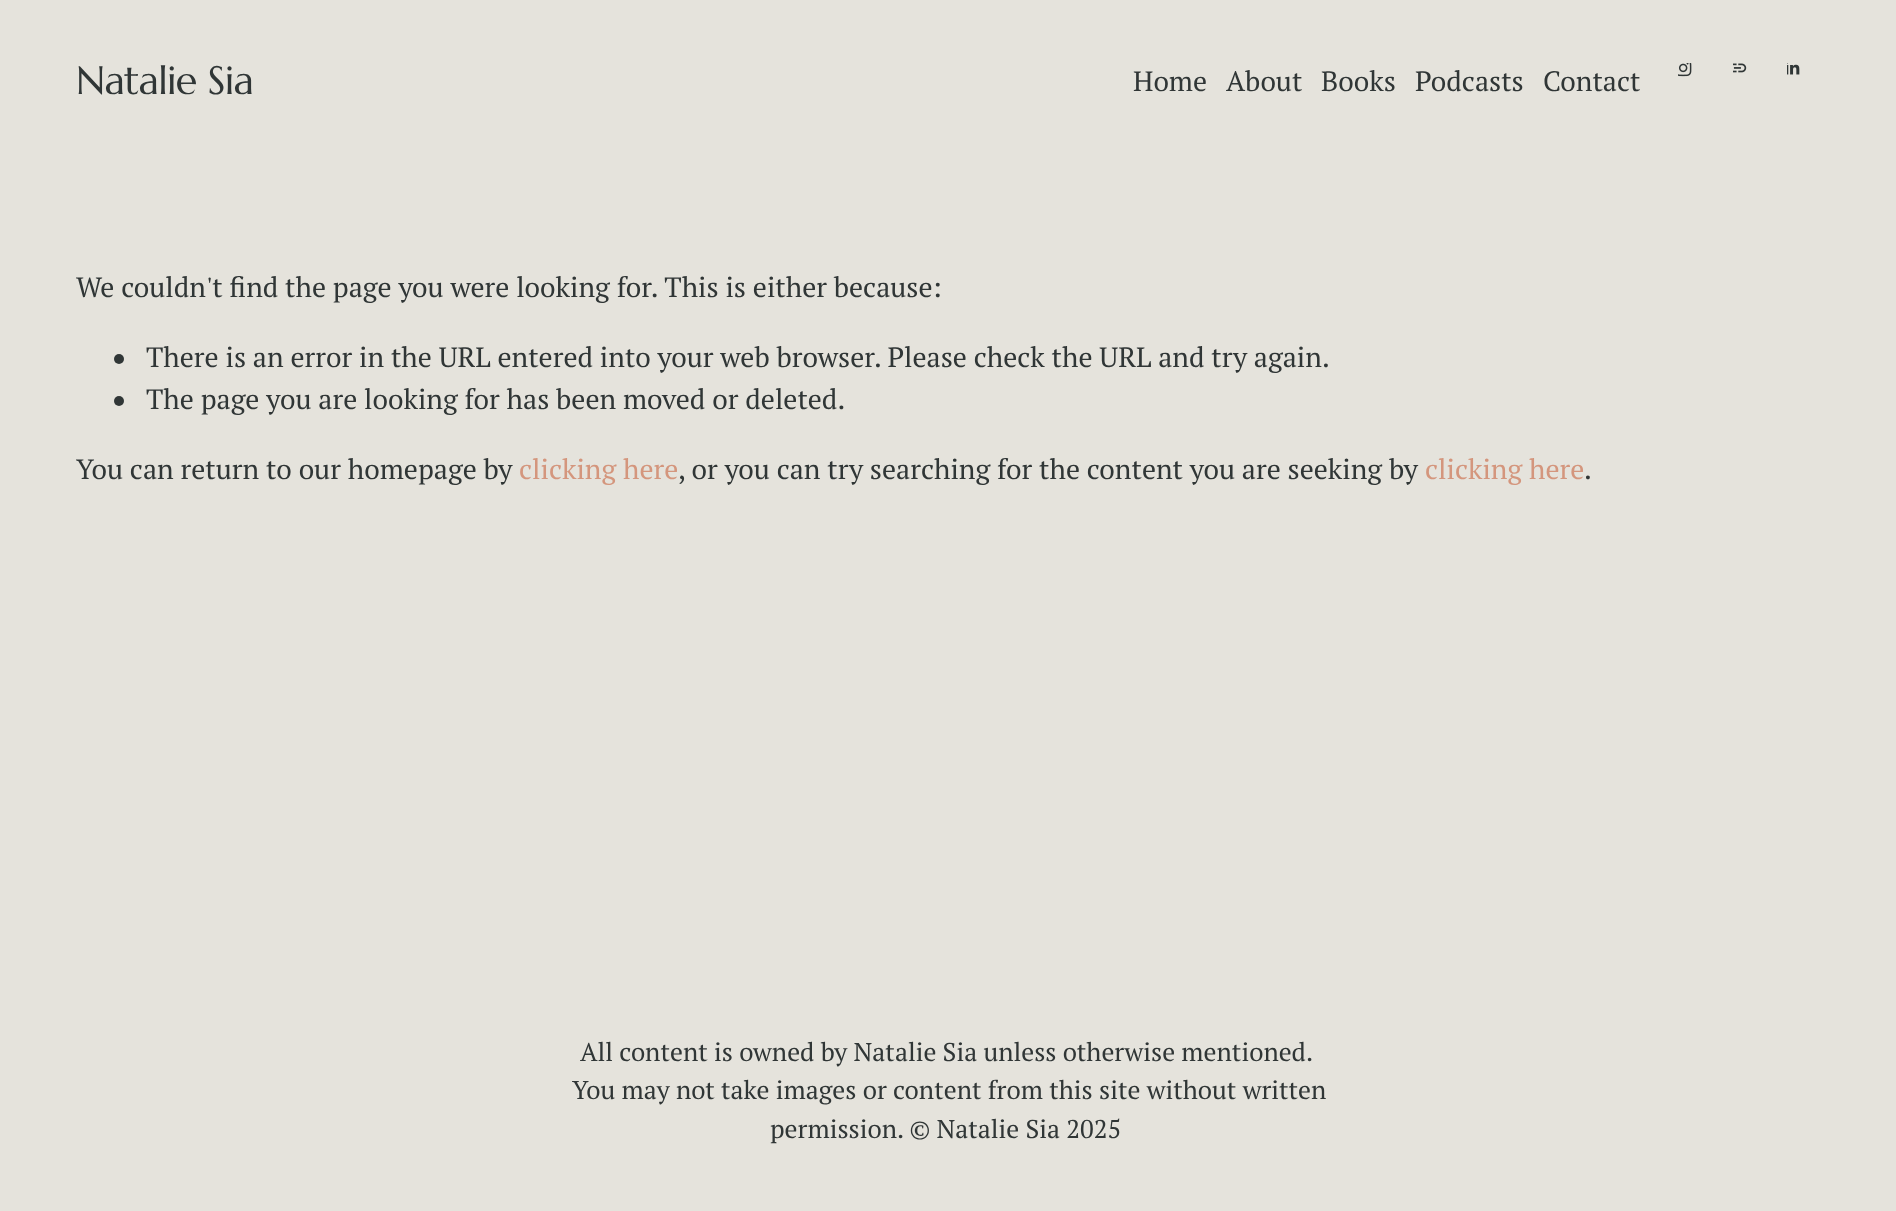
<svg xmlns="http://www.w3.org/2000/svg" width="1896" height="1211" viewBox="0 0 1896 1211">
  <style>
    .t1 { font: 39.5px Marcellus; letter-spacing: -0.75px; fill: #303636; }
    .t2 { font: 28px PT Serif; fill: #303636; }
    .t3 { font: 28px PT Serif; fill: #d4967d; }
    .t4 { font: 25.75px PT Serif; fill: #303636; }
  </style>
  <rect width="100%" height="100%" fill="#e5e3dc"/>
  <text x="76" y="94" class="t1">Natalie Sia</text>
  <text x="1133" y="91" class="t2">Home</text>
  <text x="1226" y="91" class="t2">About</text>
  <text x="1321" y="91" class="t2">Books</text>
  <text x="1415" y="91" class="t2">Podcasts</text>
  <text x="1543" y="91" class="t2">Contact</text>
  <image x="1678" y="63" width="14" height="14" href="images/1.png"/>
  <image x="1733" y="63" width="14" height="10" href="images/2.png"/>
  <image x="1787" y="63" width="13" height="12" href="images/3.png"/>
  <text x="76" y="297" class="t2">We couldn't find the page you were looking for. This is either because:</text>
  <circle cx="119" cy="359" r="5" fill="#303636"/>
  <text x="146" y="367" class="t2">There is an error in the URL entered into your web browser. Please check the URL and try again.</text>
  <circle cx="119" cy="401" r="5" fill="#303636"/>
  <text x="146" y="409" class="t2">The page you are looking for has been moved or deleted.</text>
  <text x="76" y="479" class="t2">You can return to our homepage by</text>
  <text x="519" y="479" class="t3">clicking here</text>
  <text x="678" y="479" class="t2">, or you can try searching for the content you are seeking by</text>
  <text x="1425" y="479" class="t3">clicking here</text>
  <text x="1584" y="479" class="t2">.</text>
  <text x="580" y="1061" class="t4">All content is owned by Natalie Sia unless otherwise mentioned.</text>
  <text x="572" y="1099" class="t4">You may not take images or content from this site without written</text>
  <text x="770" y="1138" class="t4">permission. © Natalie Sia 2025</text>
</svg>
